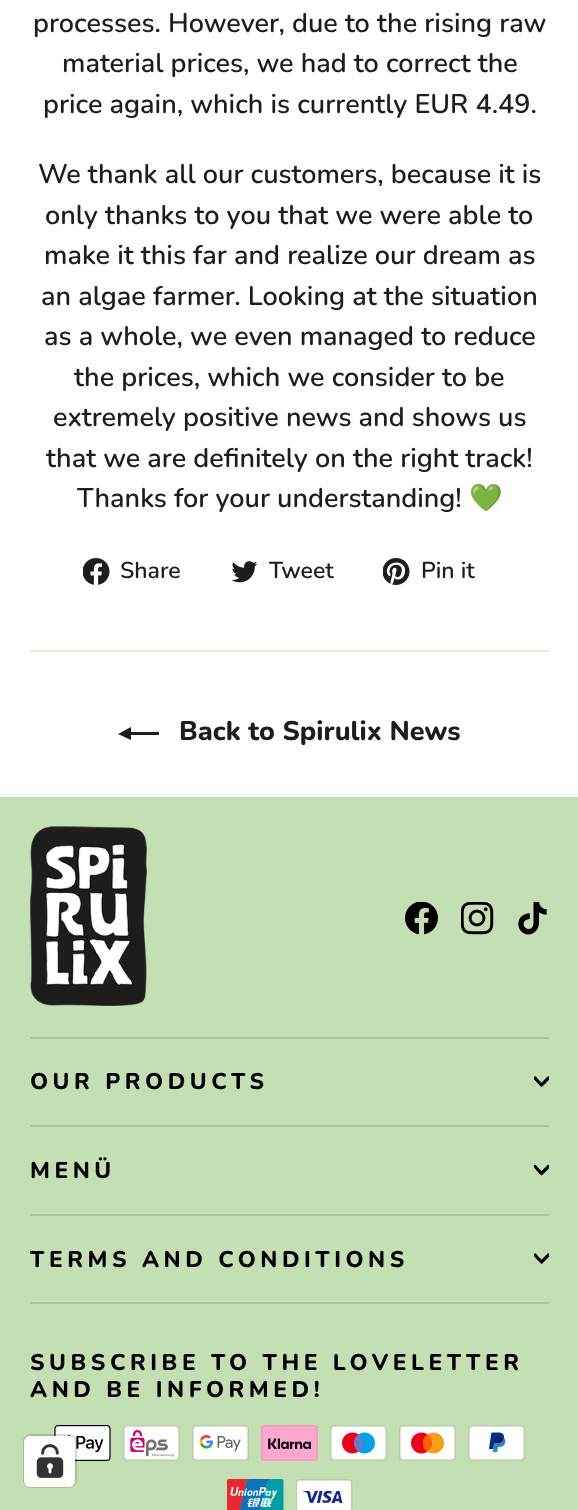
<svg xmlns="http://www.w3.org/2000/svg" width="578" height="1510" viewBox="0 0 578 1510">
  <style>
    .t1 { font: 600 27px Nunito; fill: #1c1d1d; }
    .t2 { font: 27px Noto Color Emoji; fill: #1c1d1d; }
    .t3 { font: 600 23px Nunito; fill: #1c1d1d; }
    .t4 { font: 800 27px Nunito; fill: #1c1d1d; }
    .t5 { font: 800 22.7px Nunito; letter-spacing: 4.55px; fill: #000; }
  </style>
  <defs>
    <clipPath id="clip1"><rect x="534" y="1074" width="15" height="15"/></clipPath>
    <clipPath id="clip2"><rect x="534" y="1163" width="15" height="15"/></clipPath>
    <clipPath id="clip3"><rect x="534" y="1251" width="15" height="15"/></clipPath>
  </defs>
  <rect width="100%" height="100%" fill="#fff"/>
  <text x="33" y="32" class="t1">processes. However, due to the rising raw</text>
  <text x="62" y="72" class="t1">material prices, we had to correct the</text>
  <text x="43" y="113" class="t1">price again, which is currently EUR 4.49.</text>
  <text x="38" y="183" class="t1">We thank all our customers, because it is</text>
  <text x="45" y="224" class="t1">only thanks to you that we were able to</text>
  <text x="44" y="264" class="t1">make it this far and realize our dream as</text>
  <text x="41" y="305" class="t1">an algae farmer. Looking at the situation</text>
  <text x="44" y="345" class="t1">as a whole, we even managed to reduce</text>
  <text x="74" y="386" class="t1">the prices, which we consider to be</text>
  <text x="53" y="426" class="t1">extremely positive news and shows us</text>
  <text x="46" y="467" class="t1">that we are definitely on the right track!</text>
  <text x="77" y="507" class="t1">Thanks for your understanding!</text>
  <text x="469" y="507" class="t2">💚</text>
  <image x="83" y="558" width="27" height="27" href="images/1.png"/>
  <text x="120" y="578" class="t3">Share</text>
  <image x="231" y="561" width="27" height="22" href="images/2.png"/>
  <text x="269" y="578" class="t3">Tweet</text>
  <image x="383" y="558" width="27" height="27" href="images/3.png"/>
  <text x="421" y="578" class="t3">Pin it</text>
  <rect x="30" y="650" width="519" height="2" fill="#eae7d7"/>
  <path d="M159 732V735H131V740L118 734L131 727V732Z" fill="#1c1d1d"/>
  <text x="179" y="740" class="t4">Back to Spirulix News</text>
  <rect x="0" y="797" width="578" height="713" fill="#c4dfb3"/>
  <image x="30" y="826" width="117" height="180" href="images/4.png"/>
  <image x="405" y="902" width="33" height="33" href="images/5.png"/>
  <image x="461" y="902" width="33" height="33" href="images/6.png"/>
  <image x="518" y="902" width="29" height="33" href="images/7.png"/>
  <rect x="30" y="1037" width="519" height="2" fill="#acc49e"/>
  <text x="30" y="1089" class="t5">OUR PRODUCTS</text>
  <g clip-path="url(#clip1)">
    <path d="M535 1078L541.5 1085L548.5 1078" fill="none" stroke="#000" stroke-width="3.2" stroke-linecap="round" stroke-linejoin="round"/>
  </g>
  <rect x="30" y="1125" width="519" height="2" fill="#acc49e"/>
  <text x="30" y="1178" class="t5">MENÜ</text>
  <g clip-path="url(#clip2)">
    <path d="M535 1166.5L541.5 1173.5L548.5 1166.5" fill="none" stroke="#000" stroke-width="3.2" stroke-linecap="round" stroke-linejoin="round"/>
  </g>
  <rect x="30" y="1214" width="519" height="2" fill="#acc49e"/>
  <text x="30" y="1267" class="t5">TERMS AND CONDITIONS</text>
  <g clip-path="url(#clip3)">
    <path d="M535 1255L541.5 1262L548.5 1255" fill="none" stroke="#000" stroke-width="3.2" stroke-linecap="round" stroke-linejoin="round"/>
  </g>
  <rect x="30" y="1302" width="519" height="2" fill="#acc49e"/>
  <text x="30" y="1370" class="t5">SUBSCRIBE TO THE LOVELETTER</text>
  <text x="30" y="1397" class="t5">AND BE INFORMED!</text>
  <image x="54" y="1425" width="57" height="36" href="images/8.png"/>
  <image x="123" y="1425" width="57" height="36" href="images/9.png"/>
  <image x="192" y="1425" width="57" height="36" href="images/10.png"/>
  <image x="261" y="1425" width="57" height="36" href="images/11.png"/>
  <image x="330" y="1425" width="57" height="36" href="images/12.png"/>
  <image x="399" y="1425" width="57" height="36" href="images/13.png"/>
  <image x="468" y="1425" width="57" height="36" href="images/14.png"/>
  <image x="227" y="1479" width="57" height="31" href="images/15.png"/>
  <image x="296" y="1479" width="57" height="31" href="images/16.png"/>
  <rect x="24" y="1435" width="52" height="52" rx="7" fill="none" stroke="#00000026" stroke-width="2"/>
  <rect x="24" y="1436" width="51" height="51" rx="6" fill="#fff"/>
  <image x="36" y="1444" width="28" height="34" href="images/17.png"/>
</svg>
